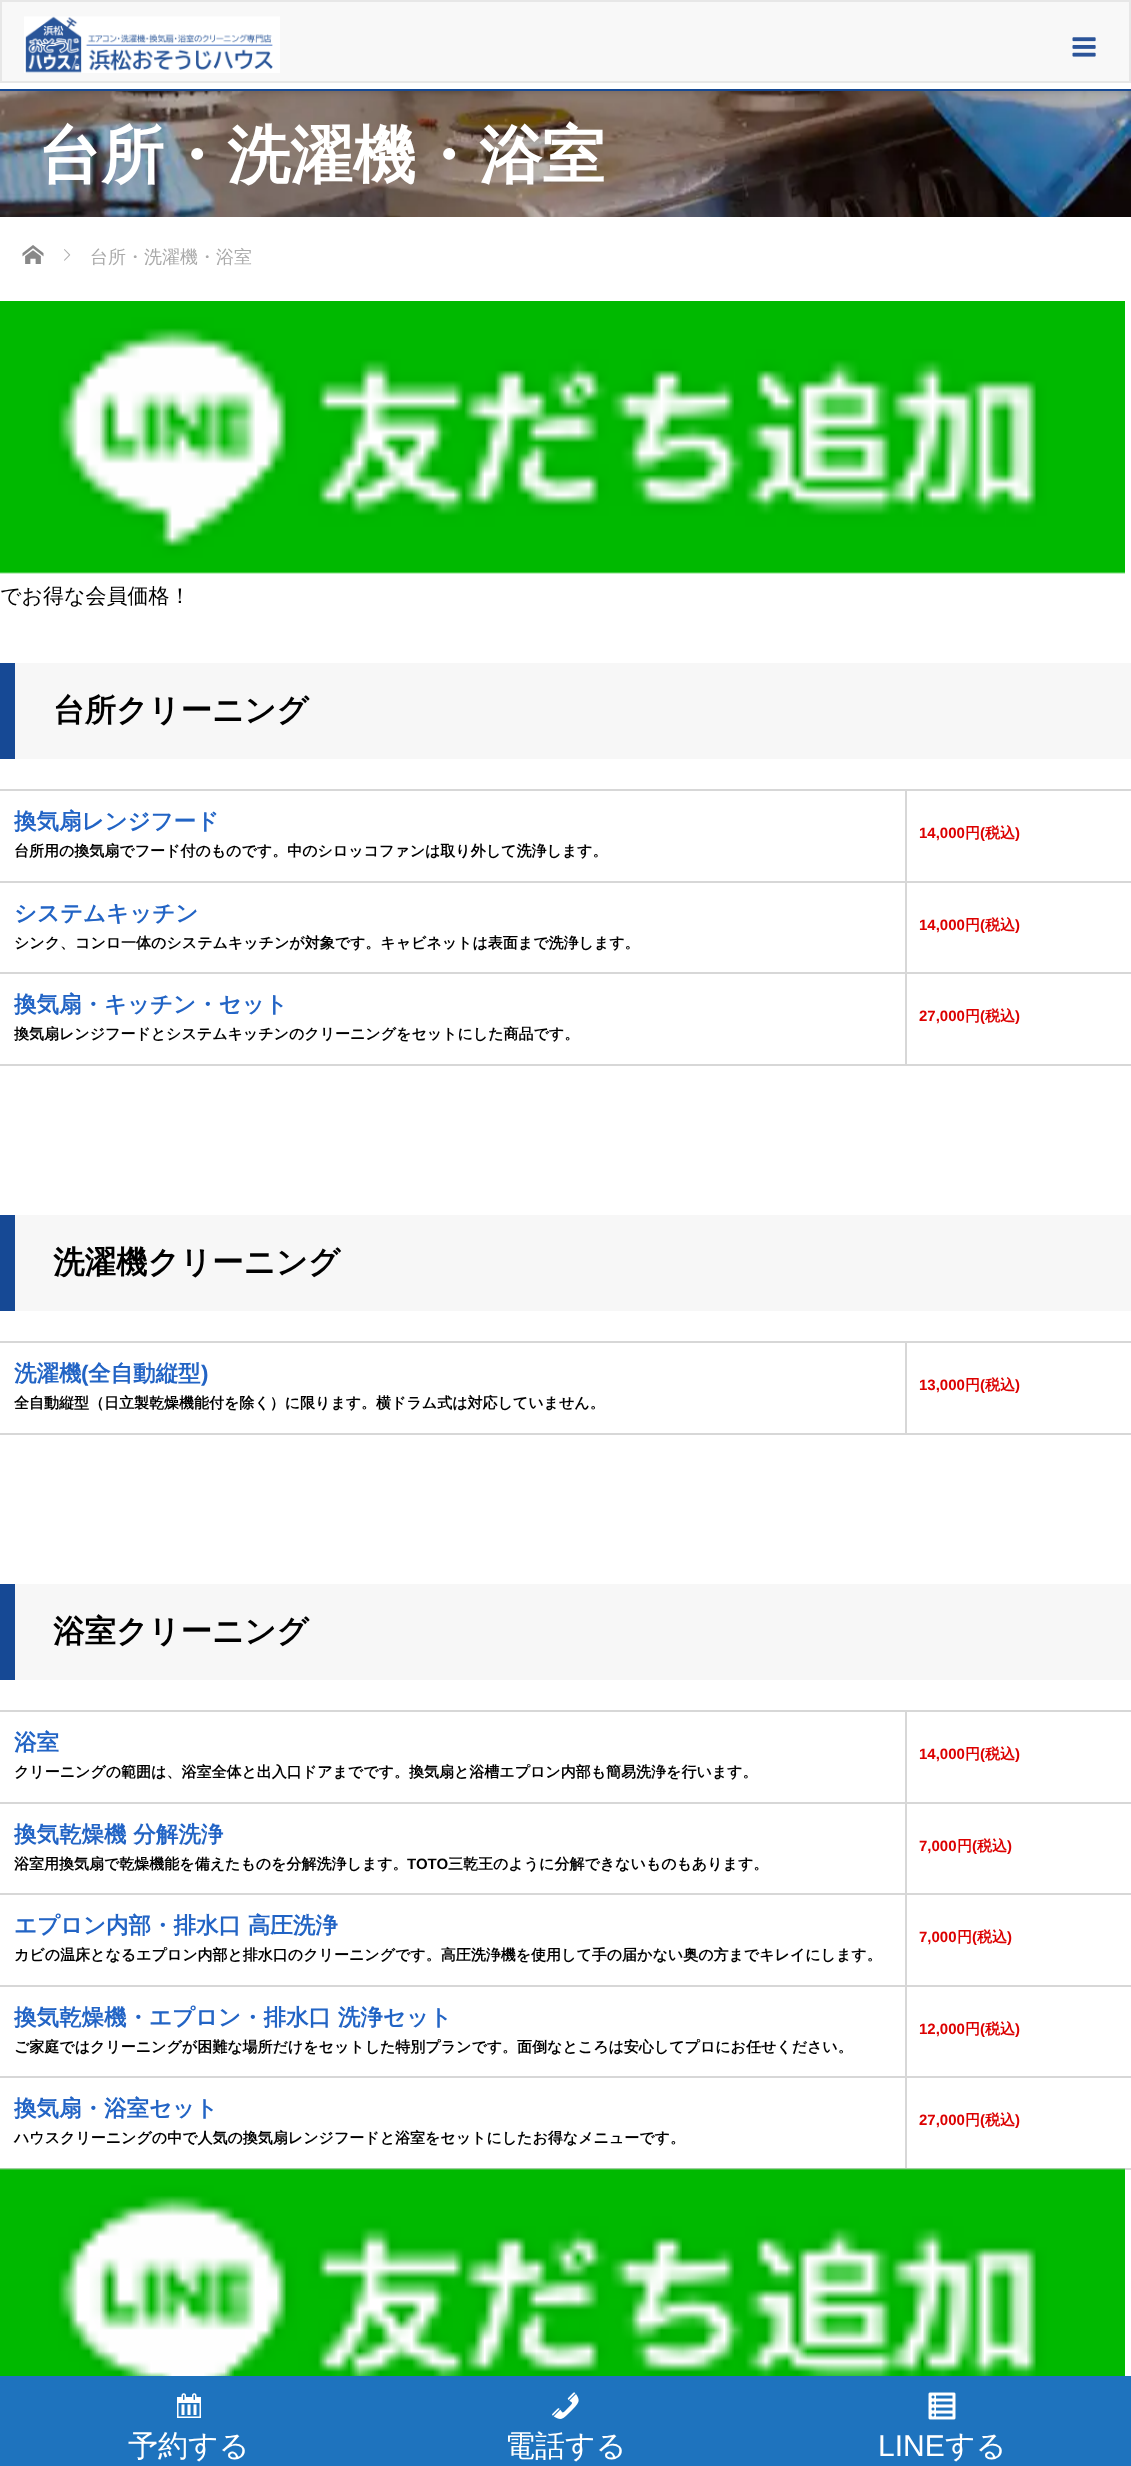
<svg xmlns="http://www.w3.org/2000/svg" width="1131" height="2466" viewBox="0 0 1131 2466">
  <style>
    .t1 { font: bold 63px WenQuanYi Zen Hei; fill: #fff; }
    .t2 { font: 500 18px WenQuanYi Zen Hei; fill: #aaa; }
    .t3 { font: 500 21px WenQuanYi Zen Hei; fill: #000; }
    .t4 { font: bold 31.5px WenQuanYi Zen Hei; fill: #000; }
    .t5 { font: bold 22.5px WenQuanYi Zen Hei; fill: #2264c5; }
    .t6 { font: bold 15px WenQuanYi Zen Hei; fill: #000; }
    .t7 { font: bold 15px Liberation Sans; fill: #dc0000; }
    .t8 { font: bold 15px WenQuanYi Zen Hei; fill: #dc0000; }
    .t9 { font: bold 22.5px Liberation Sans; fill: #2264c5; }
    .t10 { font: bold 15px Liberation Sans; fill: #000; }
    .t11 { font: 500 30px WenQuanYi Zen Hei; fill: #fff; }
    .t12 { font: 30px Liberation Sans; fill: #fff; }
  </style>
  <rect width="100%" height="100%" fill="#fff"/>
  <image x="0" y="91" width="1131" height="126" href="images/3.png"/>
  <rect x="0" y="0" width="1131" height="90" fill="#00000040" filter="blur(4.5px)"/>
  <rect x="0" y="83" width="1131" height="6" fill="#fff"/>
  <rect x="0" y="89" width="1131" height="2" fill="#154995"/>
  <rect x="1" y="1" width="1129" height="81" fill="#f8f8f8" stroke="#e7e7e7" stroke-width="2"/>
  <image x="24" y="16" width="256" height="57" href="images/1.png"/>
  <image x="1072" y="37" width="24" height="20" href="images/2.png"/>
  <text x="38" y="177" class="t1">台所・洗濯機・浴室</text>
  <image x="22" y="245" width="22" height="19" href="images/4.png"/>
  <image x="64" y="249" width="7" height="12" href="images/5.png"/>
  <text x="90" y="263" class="t2">台所・洗濯機・浴室</text>
  <image x="0" y="301" width="1125" height="273" href="images/6.png"/>
  <text x="0" y="603" class="t3">でお得な会員価格！</text>
  <rect x="15" y="663" width="1116" height="96" fill="#f7f7f7"/>
  <rect x="0" y="663" width="15" height="96" fill="#164995"/>
  <text x="53" y="721" class="t4">台所クリーニング</text>
  <rect x="0" y="789" width="1131" height="2" fill="#d7d7d7"/>
  <rect x="0" y="881" width="1131" height="2" fill="#d7d7d7"/>
  <rect x="0" y="972" width="1131" height="2" fill="#d7d7d7"/>
  <rect x="905" y="1064" width="226" height="2" fill="#d7d7d7"/>
  <rect x="905" y="972" width="2" height="93" fill="#d7d7d7"/>
  <rect x="905" y="881" width="2" height="93" fill="#d7d7d7"/>
  <rect x="905" y="789" width="2" height="93" fill="#d7d7d7"/>
  <text x="14" y="829" class="t5">換気扇レンジフード</text>
  <text x="14" y="856" class="t6">台所用の換気扇でフード付のものです。中のシロッコファンは取り外して洗浄します。</text>
  <text x="919" y="838" class="t7">14,000</text>
  <text x="965" y="838" class="t8">円</text>
  <text x="980" y="838" class="t7">(</text>
  <text x="985" y="838" class="t8">税込</text>
  <text x="1015" y="838" class="t7">)</text>
  <text x="14" y="921" class="t5">システムキッチン</text>
  <text x="14" y="948" class="t6">シンク、コンロ一体のシステムキッチンが対象です。キャビネットは表面まで洗浄します。</text>
  <text x="919" y="930" class="t7">14,000</text>
  <text x="965" y="930" class="t8">円</text>
  <text x="980" y="930" class="t7">(</text>
  <text x="985" y="930" class="t8">税込</text>
  <text x="1015" y="930" class="t7">)</text>
  <rect x="0" y="1064" width="906" height="2" fill="#d7d7d7"/>
  <text x="14" y="1012" class="t5">換気扇・キッチン・セット</text>
  <text x="14" y="1039" class="t6">換気扇レンジフードとシステムキッチンのクリーニングをセットにした商品です。</text>
  <text x="919" y="1021" class="t7">27,000</text>
  <text x="965" y="1021" class="t8">円</text>
  <text x="980" y="1021" class="t7">(</text>
  <text x="985" y="1021" class="t8">税込</text>
  <text x="1015" y="1021" class="t7">)</text>
  <rect x="15" y="1215" width="1116" height="96" fill="#f7f7f7"/>
  <rect x="0" y="1215" width="15" height="96" fill="#164995"/>
  <text x="53" y="1273" class="t4">洗濯機クリーニング</text>
  <rect x="0" y="1341" width="1131" height="2" fill="#d7d7d7"/>
  <rect x="905" y="1433" width="226" height="2" fill="#d7d7d7"/>
  <rect x="905" y="1341" width="2" height="93" fill="#d7d7d7"/>
  <rect x="0" y="1433" width="906" height="2" fill="#d7d7d7"/>
  <text x="14" y="1381" class="t5">洗濯機</text>
  <text x="81" y="1381" class="t9">(</text>
  <text x="88" y="1381" class="t5">全自動縦型</text>
  <text x="201" y="1381" class="t9">)</text>
  <text x="14" y="1408" class="t6">全自動縦型（日立製乾燥機能付を除く）に限ります。横ドラム式は対応していません。</text>
  <text x="919" y="1390" class="t7">13,000</text>
  <text x="965" y="1390" class="t8">円</text>
  <text x="980" y="1390" class="t7">(</text>
  <text x="985" y="1390" class="t8">税込</text>
  <text x="1015" y="1390" class="t7">)</text>
  <rect x="15" y="1584" width="1116" height="96" fill="#f7f7f7"/>
  <rect x="0" y="1584" width="15" height="96" fill="#164995"/>
  <text x="53" y="1642" class="t4">浴室クリーニング</text>
  <rect x="0" y="1710" width="1131" height="2" fill="#d7d7d7"/>
  <rect x="0" y="1802" width="1131" height="2" fill="#d7d7d7"/>
  <rect x="0" y="1893" width="1131" height="2" fill="#d7d7d7"/>
  <rect x="0" y="1985" width="1131" height="2" fill="#d7d7d7"/>
  <rect x="0" y="2076" width="1131" height="2" fill="#d7d7d7"/>
  <rect x="905" y="2168" width="226" height="2" fill="#d7d7d7"/>
  <rect x="905" y="2076" width="2" height="93" fill="#d7d7d7"/>
  <rect x="905" y="1985" width="2" height="93" fill="#d7d7d7"/>
  <rect x="905" y="1893" width="2" height="93" fill="#d7d7d7"/>
  <rect x="905" y="1802" width="2" height="93" fill="#d7d7d7"/>
  <rect x="905" y="1710" width="2" height="93" fill="#d7d7d7"/>
  <text x="14" y="1750" class="t5">浴室</text>
  <text x="14" y="1777" class="t6">クリーニングの範囲は、浴室全体と出入口ドアまでです。換気扇と浴槽エプロン内部も簡易洗浄を行います。</text>
  <text x="919" y="1759" class="t7">14,000</text>
  <text x="965" y="1759" class="t8">円</text>
  <text x="980" y="1759" class="t7">(</text>
  <text x="985" y="1759" class="t8">税込</text>
  <text x="1015" y="1759" class="t7">)</text>
  <text x="14" y="1842" class="t5">換気乾燥機 分解洗浄</text>
  <text x="14" y="1869" class="t6">浴室用換気扇で乾燥機能を備えたものを分解洗浄します。</text>
  <text x="407" y="1869" class="t10">TOTO</text>
  <text x="448" y="1869" class="t6">三乾王のように分解できないものもあります。</text>
  <text x="919" y="1851" class="t7">7,000</text>
  <text x="957" y="1851" class="t8">円</text>
  <text x="972" y="1851" class="t7">(</text>
  <text x="977" y="1851" class="t8">税込</text>
  <text x="1007" y="1851" class="t7">)</text>
  <text x="14" y="1933" class="t5">エプロン内部・排水口 高圧洗浄</text>
  <text x="14" y="1960" class="t6">カビの温床となるエプロン内部と排水口のクリーニングです。高圧洗浄機を使用して手の届かない奥の方までキレイにします。</text>
  <text x="919" y="1942" class="t7">7,000</text>
  <text x="957" y="1942" class="t8">円</text>
  <text x="972" y="1942" class="t7">(</text>
  <text x="977" y="1942" class="t8">税込</text>
  <text x="1007" y="1942" class="t7">)</text>
  <text x="14" y="2025" class="t5">換気乾燥機・エプロン・排水口 洗浄セット</text>
  <text x="14" y="2052" class="t6">ご家庭ではクリーニングが困難な場所だけをセットした特別プランです。面倒なところは安心してプロにお任せください。</text>
  <text x="919" y="2034" class="t7">12,000</text>
  <text x="965" y="2034" class="t8">円</text>
  <text x="980" y="2034" class="t7">(</text>
  <text x="985" y="2034" class="t8">税込</text>
  <text x="1015" y="2034" class="t7">)</text>
  <rect x="0" y="2168" width="906" height="2" fill="#d7d7d7"/>
  <text x="14" y="2116" class="t5">換気扇・浴室セット</text>
  <text x="14" y="2143" class="t6">ハウスクリーニングの中で人気の換気扇レンジフードと浴室をセットにしたお得なメニューです。</text>
  <text x="919" y="2125" class="t7">27,000</text>
  <text x="965" y="2125" class="t8">円</text>
  <text x="980" y="2125" class="t7">(</text>
  <text x="985" y="2125" class="t8">税込</text>
  <text x="1015" y="2125" class="t7">)</text>
  <image x="0" y="2168" width="1125" height="208" href="images/7.png"/>
  <rect x="0" y="2376" width="1131" height="90" fill="#1e73be"/>
  <image x="177" y="2393" width="24" height="25" href="images/8.png"/>
  <text x="128" y="2456" class="t11">予約する</text>
  <image x="552" y="2392" width="27" height="27" href="images/9.png"/>
  <text x="505" y="2456" class="t11">電話する</text>
  <image x="928" y="2392" width="28" height="28" href="images/10.png"/>
  <text x="878" y="2456" class="t12">LINE</text>
  <text x="945" y="2456" class="t11">する</text>
</svg>
